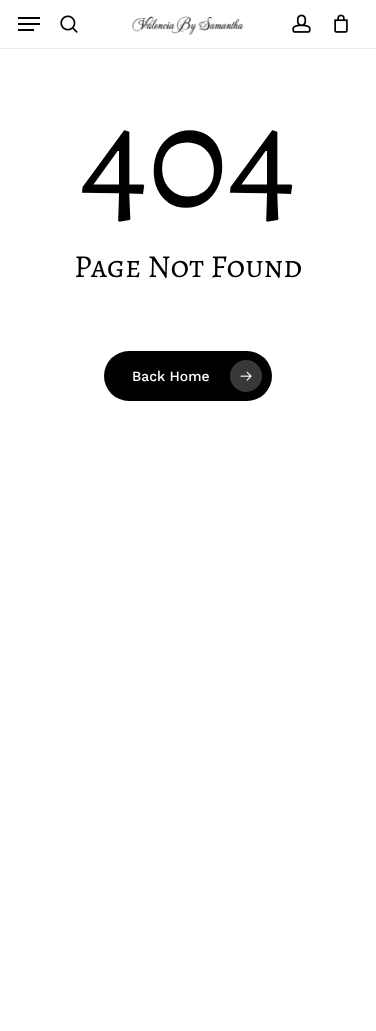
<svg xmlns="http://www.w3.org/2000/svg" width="376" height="1031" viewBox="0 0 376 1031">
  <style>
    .t1 { font: 150px Alegreya SC; fill: #000; }
    .t2 { font: 32px Alegreya SC; fill: #000; }
    .t3 { font: 500 14px Work Sans; fill: #fff; }
  </style>
  <rect width="100%" height="100%" fill="#fff"/>
  <rect x="0" y="48" width="376" height="1" fill="#ebebeb"/>
  <rect x="18" y="17" width="22" height="2" fill="#000"/>
  <rect x="18" y="29" width="16" height="2" fill="#000"/>
  <rect x="18" y="23" width="22" height="2" fill="#000"/>
  <image x="60" y="15" width="18" height="18" href="images/1.png"/>
  <image x="292" y="14" width="19" height="19" href="images/2.png"/>
  <image x="334" y="14" width="14" height="19" href="images/3.png"/>
  <image x="131" y="16" width="113" height="19" href="images/4.png"/>
  <text x="80" y="206" class="t1">404</text>
  <text x="74" y="277" class="t2">Page Not Found</text>
  <rect x="104" y="351" width="168" height="50" rx="25" fill="#000"/>
  <text x="132" y="381" class="t3">Back Home</text>
  <circle cx="246" cy="376" r="16" fill="#383838"/>
  <image x="240" y="371" width="12" height="10" href="images/5.png"/>
</svg>
